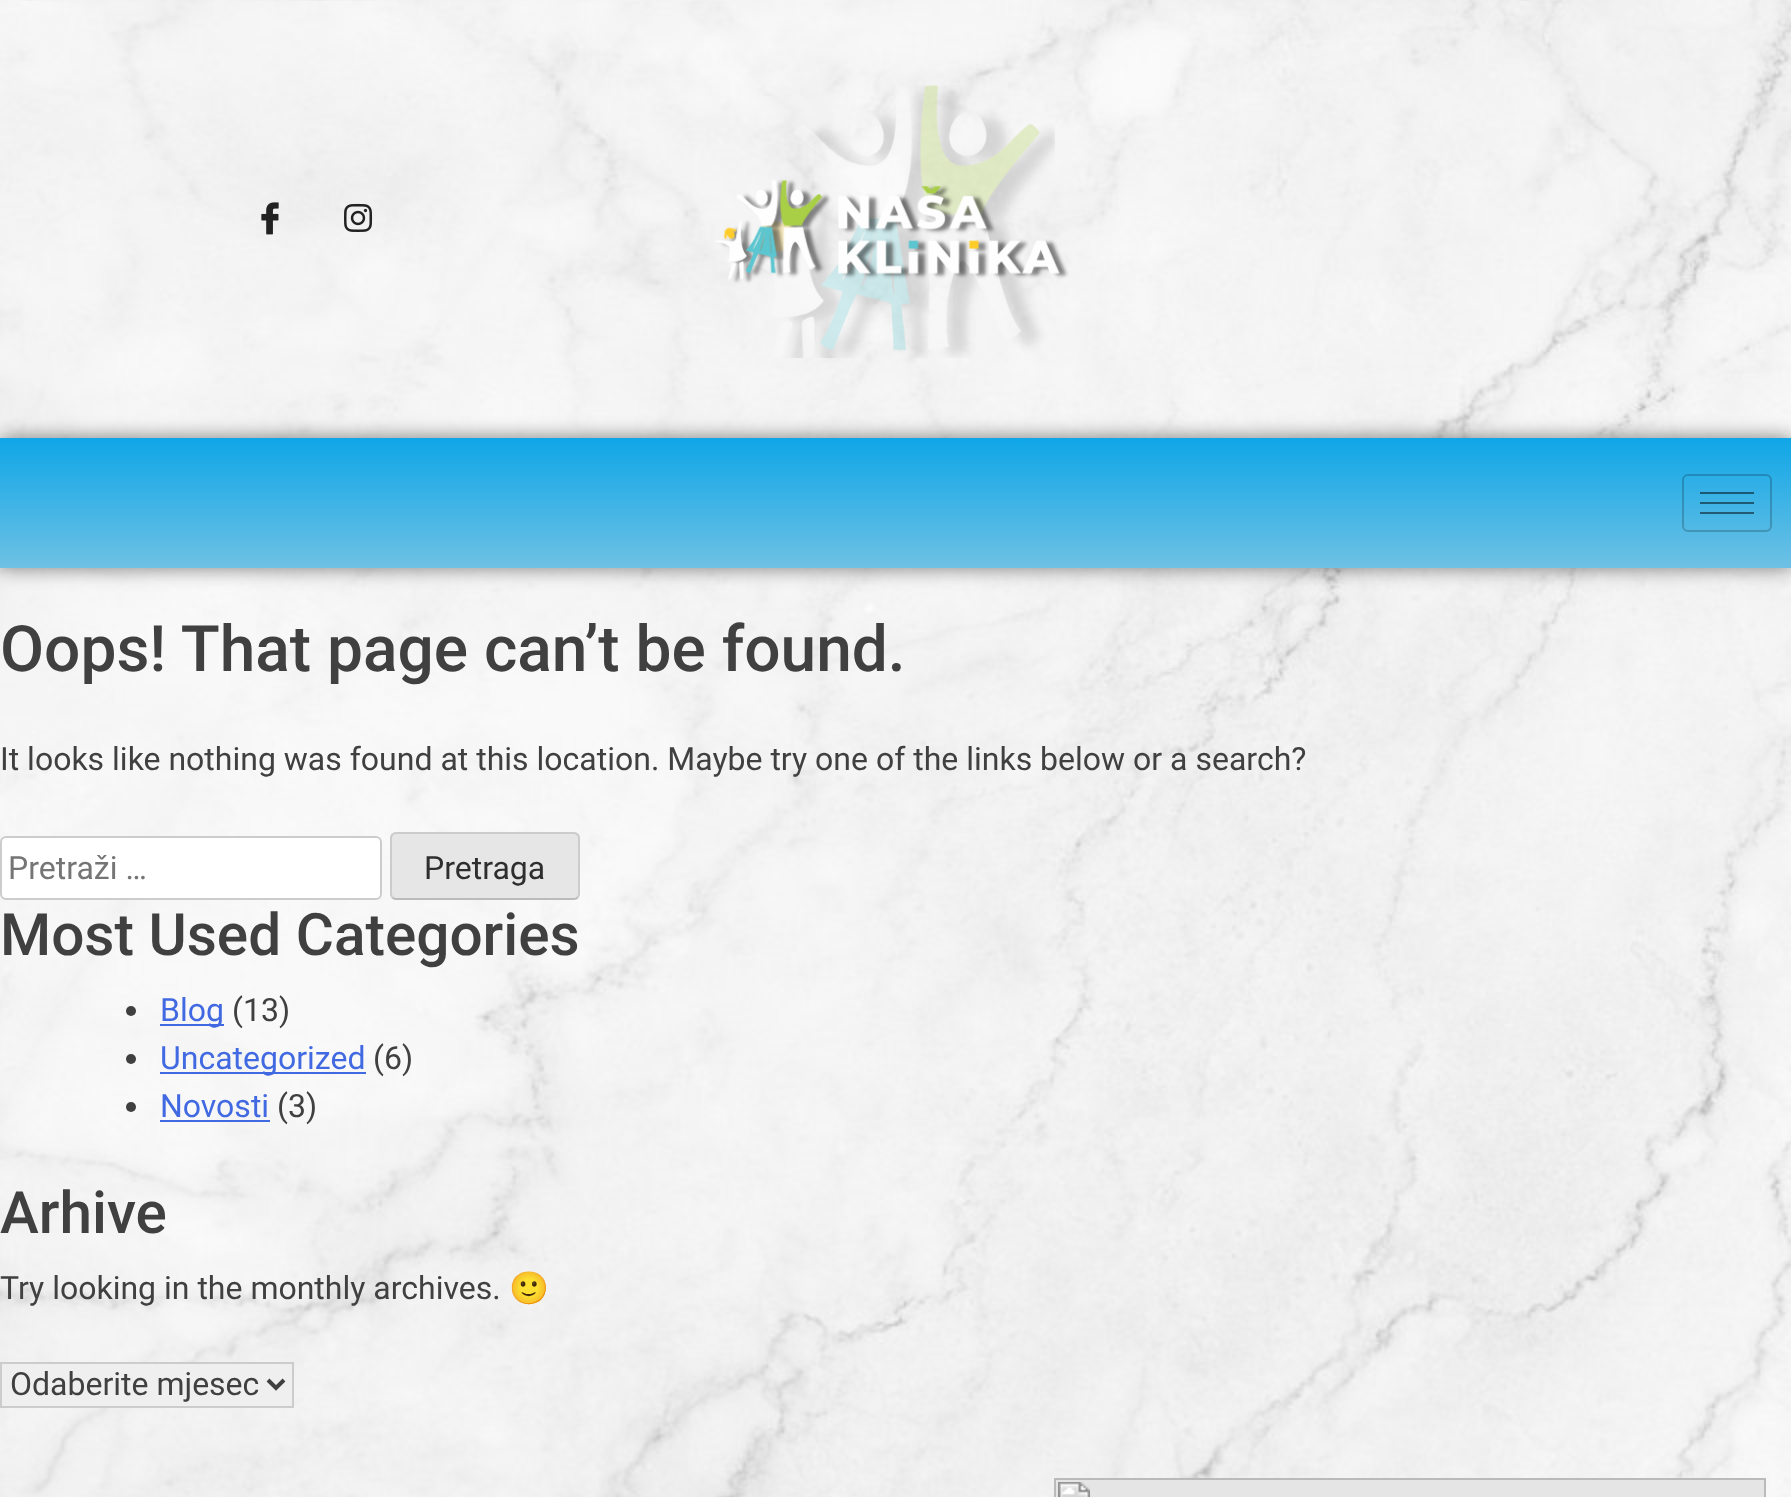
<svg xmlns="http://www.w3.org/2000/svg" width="1791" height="1497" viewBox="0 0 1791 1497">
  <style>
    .t1 { font: 500 64px Roboto; fill: #404040; }
    .t2 { font: 32px Roboto; fill: #404040; }
    .t3 { font: 32px Roboto; fill: #757575; }
    .t4 { font: 32px Roboto; fill: #2e2e2e; }
    .t5 { font: 500 58.5px Roboto; fill: #404040; }
    .t6 { font: 32px Roboto; fill: #4169e1; }
    .t7 { font: 32px Noto Color Emoji; fill: #404040; }
  </style>
  <defs>
    <linearGradient id="g1" gradientUnits="userSpaceOnUse" x1="896" y1="438" x2="896" y2="568"><stop offset="0" stop-color="#0fa6e7"/><stop offset="1" stop-color="#6ec1e4"/></linearGradient>
  </defs>
  <rect width="100%" height="100%" fill="#fff"/>
  <image x="0" y="0" width="1791" height="1497" href="images/1.png"/>
  <image x="261" y="202" width="18" height="33" href="images/2.png"/>
  <image x="344" y="203" width="29" height="29" href="images/3.png"/>
  <image x="715" y="85" width="354" height="273" href="images/4.png"/>
  <rect x="0" y="438" width="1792" height="130" fill="#00000080" filter="blur(10px)"/>
  <rect x="0" y="438" width="1791" height="130" fill="url(#g1)"/>
  <rect x="1683" y="475" width="88" height="56" rx="5" fill="none" stroke="#00000033" stroke-width="2"/>
  <rect x="1700" y="492" width="54" height="2" fill="#1c5973"/>
  <rect x="1700" y="502" width="54" height="2" fill="#1f5a73"/>
  <rect x="1700" y="512" width="54" height="2" fill="#235b73"/>
  <text x="0" y="671" class="t1">Oops! That page can’t be found.</text>
  <text x="0" y="770" class="t2">It looks like nothing was found at this location. Maybe try one of the links below or a search?</text>
  <rect x="1" y="837" width="380" height="62" rx="5" fill="#fff" stroke="#ccc" stroke-width="2"/>
  <text x="8" y="879" class="t3">Pretraži …</text>
  <rect x="390" y="832" width="190" height="68" rx="6" fill="#e6e6e6"/>
  <path d="M577.5 897.5C576.5 898.5 575.5 899 574 899H396C394.5 899 393.5 898.5 392.5 897.5" fill="none" stroke="#bbb" stroke-width="2"/>
  <path d="M392.5 897.5C391.5 896.5 391 895.5 391 894V838C391 836.5 391.5 835.5 392.5 834.5C393.5 833.5 394.5 833 396 833H574C575.5 833 576.5 833.5 577.5 834.5C578.5 835.5 579 836.5 579 838V894C579 895.5 578.5 896.5 577.5 897.5" fill="none" stroke="#ccc" stroke-width="2"/>
  <text x="424" y="879" class="t4">Pretraga</text>
  <text x="0" y="955" class="t5">Most Used Categories</text>
  <circle cx="131" cy="1011" r="5" fill="#404040"/>
  <rect x="160" y="1024" width="64" height="2" fill="#4169e1"/>
  <text x="160" y="1021" class="t6">Blog</text>
  <text x="232" y="1021" class="t2">(13)</text>
  <circle cx="131" cy="1059" r="5" fill="#404040"/>
  <rect x="160" y="1072" width="206" height="2" fill="#4169e1"/>
  <text x="160" y="1069" class="t6">Uncategorized</text>
  <text x="373" y="1069" class="t2">(6)</text>
  <circle cx="131" cy="1107" r="5" fill="#404040"/>
  <text x="160" y="1117" class="t6">Novosti</text>
  <rect x="160" y="1120" width="110" height="2" fill="#4169e1"/>
  <text x="277" y="1117" class="t2">(3)</text>
  <text x="0" y="1233" class="t5">Arhive</text>
  <text x="0" y="1299" class="t2">Try looking in the monthly archives.</text>
  <text x="509" y="1299" class="t7">🙂</text>
  <rect x="1" y="1363" width="292" height="44" fill="#efefef" stroke="#ccc" stroke-width="2"/>
  <path d="M268 1380L276 1388L284 1380" fill="none" stroke="#404040" stroke-width="4"/>
  <text x="10" y="1395" class="t2">Odaberite mjesec</text>
  <image x="1054" y="1478" width="712" height="19" href="images/5.png"/>
</svg>
